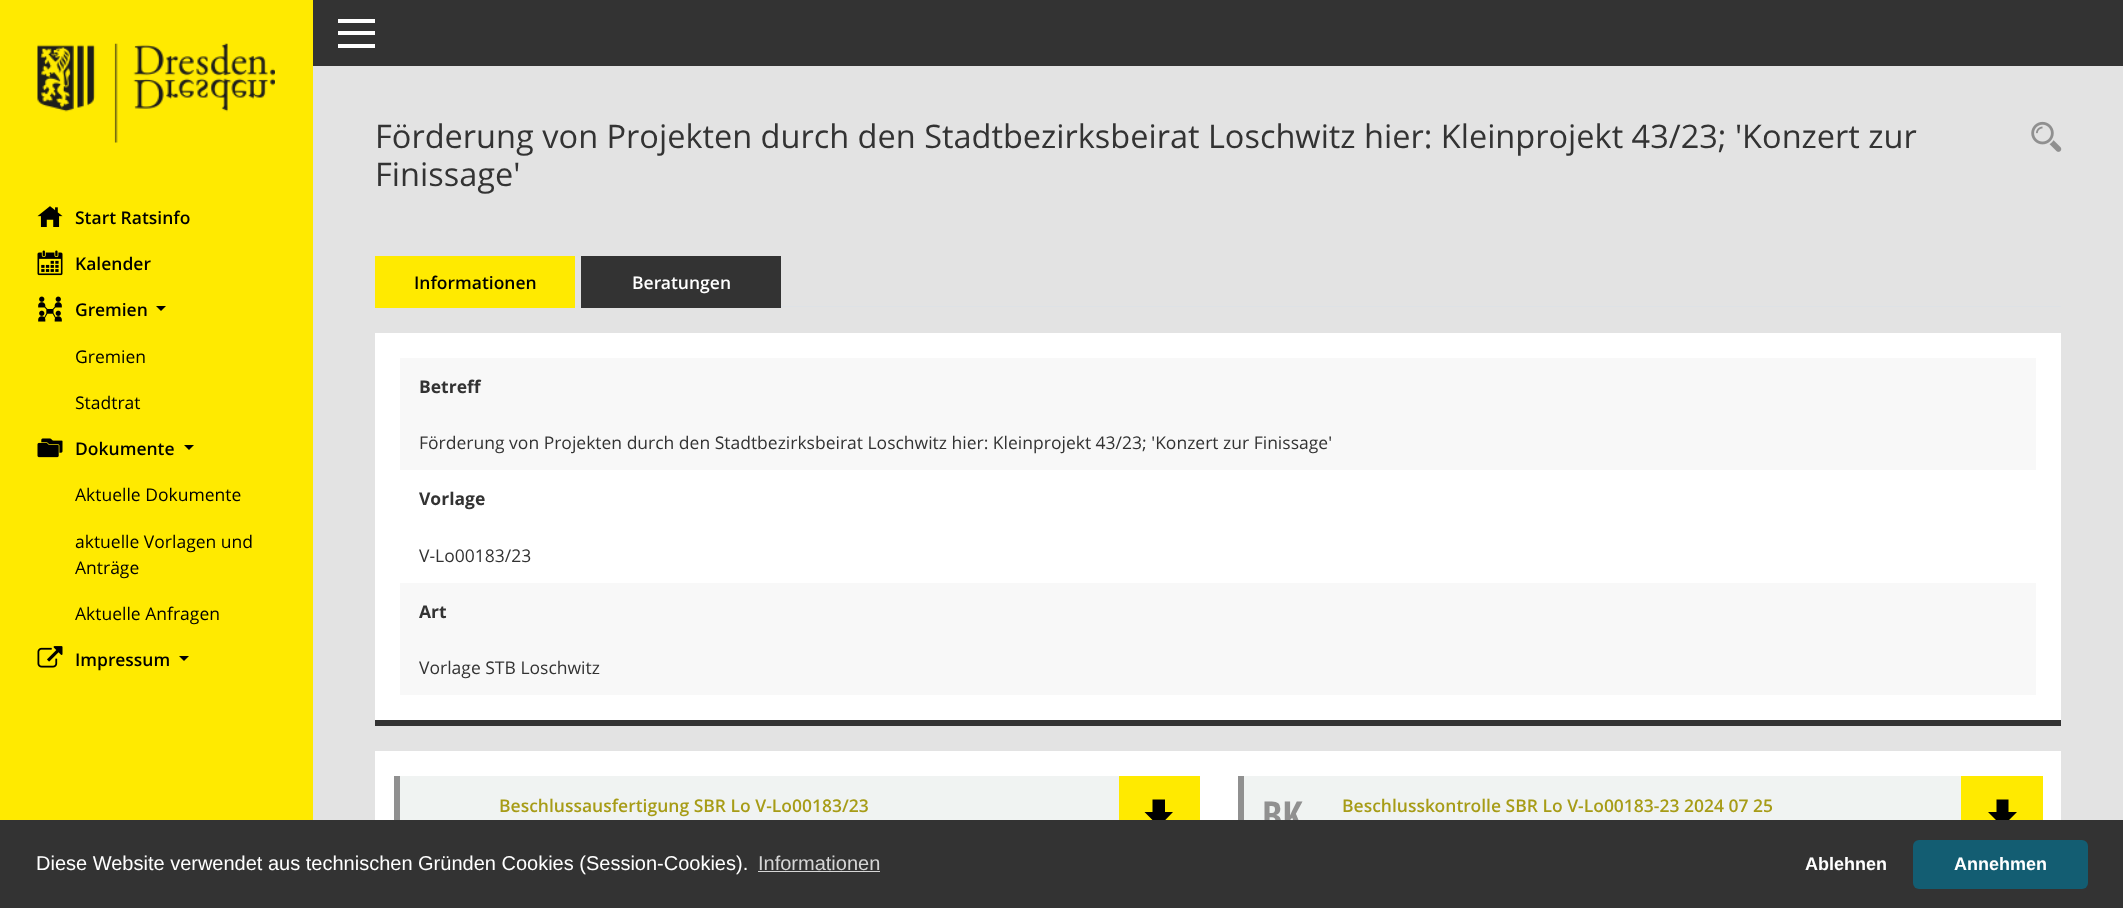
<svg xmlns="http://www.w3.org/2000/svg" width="2123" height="908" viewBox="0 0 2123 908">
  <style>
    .t1 { font: 600 17.5px Open Sans; fill: #000; }
    .t2 { font: 17.5px Open Sans; fill: #000; }
    .t3 { font: 32.5px Open Sans; fill: #333; }
    .t4 { font: 600 17.5px Open Sans; fill: #fff; }
    .t5 { font: bold 17.5px Open Sans; fill: #333; }
    .t6 { font: 17.5px Open Sans; fill: #333; }
    .t7 { font: 600 17.5px Open Sans; fill: #a79c17; }
    .t8 { font: bold 40px Open Sans Condensed; fill: #909090; }
    .t9 { font: 20px Liberation Sans; fill: #fff; }
    .t10 { font: 20px Liberation Sans; fill: #d6d6d6; }
    .t11 { font: bold 18px Liberation Sans; fill: #fff; }
  </style>
  <rect width="100%" height="100%" fill="#e3e3e3"/>
  <rect x="0" y="0" width="313" height="820" fill="#ffea00"/>
  <image x="37" y="43" width="238" height="100" href="images/1.png"/>
  <image x="37" y="206" width="26" height="21" href="images/2.png"/>
  <text x="75" y="224" class="t1">Start Ratsinfo</text>
  <image x="37" y="250" width="26" height="26" href="images/3.png"/>
  <text x="75" y="270" class="t1">Kalender</text>
  <image x="38" y="296" width="24" height="26" href="images/4.png"/>
  <text x="75" y="316" class="t1">Gremien</text>
  <path d="M156 306H166L161 311Z" fill="#000"/>
  <text x="75" y="363" class="t2">Gremien</text>
  <text x="75" y="409" class="t2">Stadtrat</text>
  <image x="37" y="438" width="26" height="20" href="images/5.png"/>
  <text x="75" y="455" class="t1">Dokumente</text>
  <path d="M184 445H194L189 450Z" fill="#000"/>
  <text x="75" y="501" class="t2">Aktuelle Dokumente</text>
  <text x="75" y="548" class="t2">aktuelle Vorlagen und</text>
  <text x="75" y="574" class="t2">Anträge</text>
  <text x="75" y="620" class="t2">Aktuelle Anfragen</text>
  <image x="37" y="646" width="26" height="22" href="images/6.png"/>
  <text x="75" y="666" class="t1">Impressum</text>
  <path d="M179 656H189L184 661Z" fill="#000"/>
  <rect x="313" y="0" width="1810" height="66" fill="#333"/>
  <rect x="338" y="19" width="37" height="4" fill="#fff"/>
  <rect x="338" y="31" width="37" height="4" fill="#fff"/>
  <rect x="338" y="44" width="37" height="4" fill="#fff"/>
  <text x="375" y="148" class="t3">Förderung von Projekten durch den Stadtbezirksbeirat Loschwitz hier: Kleinprojekt 43/23; 'Konzert zur</text>
  <text x="375" y="186" class="t3">Finissage'</text>
  <image x="2031" y="121" width="31" height="31" href="images/7.png"/>
  <rect x="575" y="306" width="1486" height="1" fill="#dee2e6"/>
  <rect x="375" y="256" width="200" height="52" fill="#ffea00"/>
  <text x="414" y="289" class="t1">Informationen</text>
  <rect x="581" y="256" width="200" height="52" fill="#333"/>
  <text x="632" y="289" class="t4">Beratungen</text>
  <rect x="375" y="333" width="1686" height="387" fill="#fff"/>
  <rect x="375" y="720" width="1686" height="6" fill="#333"/>
  <rect x="400" y="358" width="1636" height="112" fill="#f8f8f8"/>
  <text x="419" y="393" class="t5">Betreff</text>
  <text x="419" y="449" class="t6">Förderung von Projekten durch den Stadtbezirksbeirat Loschwitz hier: Kleinprojekt 43/23; 'Konzert zur Finissage'</text>
  <text x="419" y="505" class="t5">Vorlage</text>
  <text x="419" y="562" class="t6">V-Lo00183/23</text>
  <rect x="400" y="583" width="1636" height="112" fill="#f8f8f8"/>
  <text x="419" y="618" class="t5">Art</text>
  <text x="419" y="674" class="t6">Vorlage STB Loschwitz</text>
  <rect x="375" y="751" width="1686" height="69" fill="#fff"/>
  <rect x="400" y="776" width="719" height="44" fill="#f0f3f2"/>
  <rect x="394" y="776" width="6" height="44" fill="#909090"/>
  <text x="499" y="812" class="t7">Beschlussausfertigung SBR Lo V-Lo00183/23</text>
  <rect x="1119" y="776" width="81" height="44" fill="#ffea00"/>
  <path d="M1173 812H1165V799.5H1152.5V812H1144.5L1159 826.5ZM1144.5 830.5V834.5H1173V830.5Z" fill="#000"/>
  <rect x="1244" y="776" width="717" height="44" fill="#f0f3f2"/>
  <rect x="1238" y="776" width="6" height="44" fill="#909090"/>
  <text x="1262" y="830" class="t8">BK</text>
  <text x="1342" y="812" class="t7">Beschlusskontrolle SBR Lo V-Lo00183-23 2024 07 25</text>
  <rect x="1961" y="776" width="82" height="44" fill="#ffea00"/>
  <path d="M2017 812H2008.5V799.5H1996.5V812H1988L2002.5 826.5ZM1988 830.5V834.5H2017V830.5Z" fill="#000"/>
  <rect x="0" y="820" width="2123" height="88" fill="#333"/>
  <text x="36" y="870" class="t9">Diese Website verwendet aus technischen Gründen Cookies (Session-Cookies).</text>
  <text x="758" y="870" class="t10">Informationen</text>
  <rect x="758" y="871" width="122" height="1" fill="#d6d6d6"/>
  <text x="1805" y="870" class="t11">Ablehnen</text>
  <rect x="1913" y="840" width="175" height="49" rx="6" fill="#135d72"/>
  <text x="1954" y="870" class="t11">Annehmen</text>
</svg>
